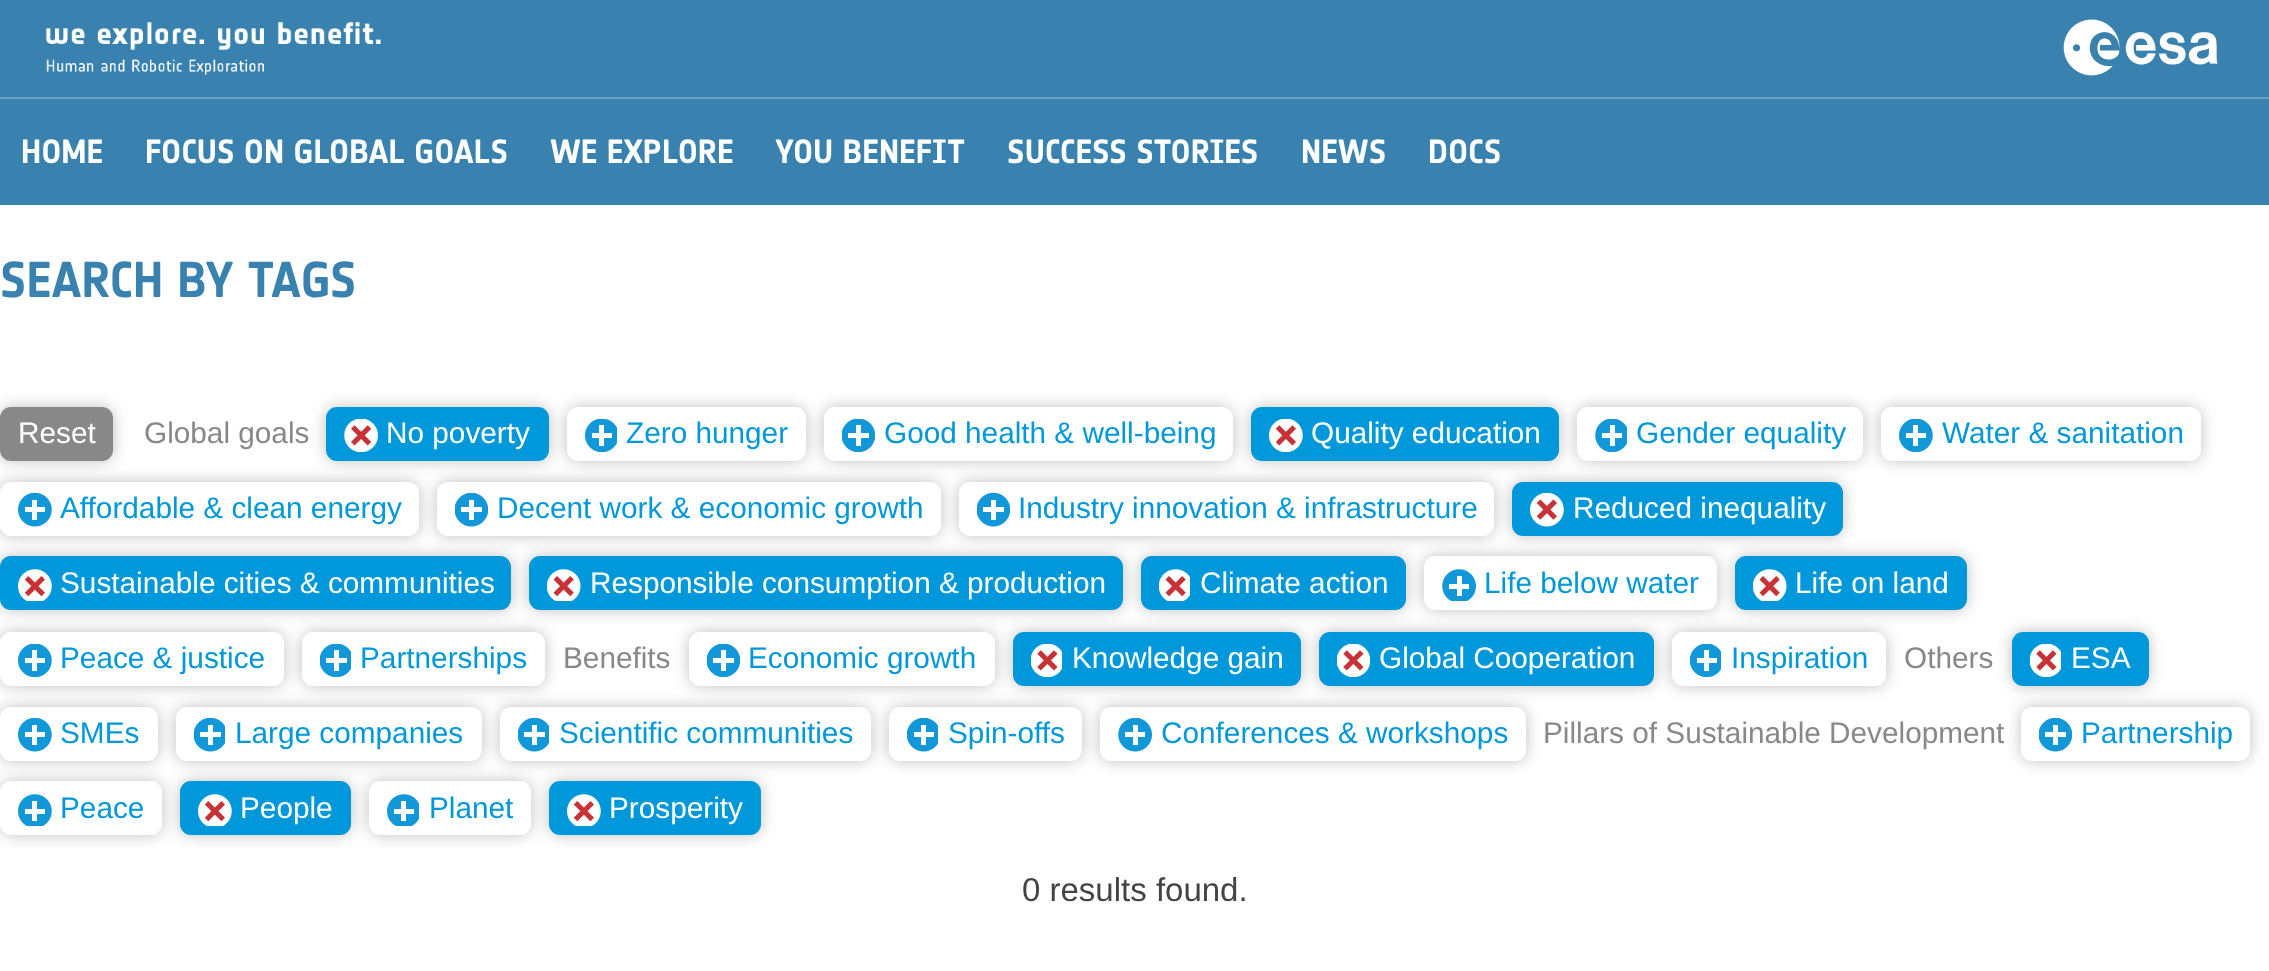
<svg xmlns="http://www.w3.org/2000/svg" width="2269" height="971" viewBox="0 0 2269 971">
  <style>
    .t1 { font: bold 33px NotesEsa; fill: #fff; }
    .t2 { font: bold 49.5px NotesEsa; fill: #3982af; }
    .t3 { font: 29.75px Liberation Sans; fill: #fff; }
    .t4 { font: 29.75px Liberation Sans; fill: #888; }
    .t5 { font: 29.75px Liberation Sans; fill: #0098db; }
    .t6 { font: 33px Liberation Sans; fill: #444; }
  </style>
  <rect width="100%" height="100%" fill="#fff"/>
  <rect x="0" y="0" width="2269" height="97" fill="#3982af"/>
  <image x="45" y="21" width="336" height="54" href="images/1.png"/>
  <image x="2063" y="19" width="155" height="57" href="images/2.png"/>
  <rect x="0" y="99" width="2269" height="106" fill="#3982af"/>
  <rect x="0" y="97" width="2269" height="2" fill="#6ba1c3"/>
  <text x="21" y="163" class="t1">HOME</text>
  <text x="145" y="163" class="t1">FOCUS ON GLOBAL GOALS</text>
  <text x="550" y="163" class="t1">WE EXPLORE</text>
  <text x="775" y="163" class="t1">YOU BENEFIT</text>
  <text x="1007" y="163" class="t1">SUCCESS STORIES</text>
  <text x="1301" y="163" class="t1">NEWS</text>
  <text x="1428" y="163" class="t1">DOCS</text>
  <text x="0" y="297" class="t2">SEARCH BY TAGS</text>
  <rect x="0" y="407" width="113" height="54" rx="11" fill="#00000040" filter="blur(7.5px)"/>
  <rect x="0" y="407" width="113" height="54" rx="11" fill="#888"/>
  <text x="18" y="443" class="t3">Reset</text>
  <text x="144" y="443" class="t4">Global goals</text>
  <rect x="326" y="407" width="223" height="54" rx="11" fill="#00000040" filter="blur(7.5px)"/>
  <rect x="326" y="407" width="223" height="54" rx="11" fill="#0098db"/>
  <image x="344" y="419" width="34" height="33" href="images/3.png"/>
  <text x="386" y="443" class="t3">No poverty</text>
  <rect x="567" y="407" width="239" height="54" rx="11" fill="#00000040" filter="blur(7.5px)"/>
  <rect x="567" y="407" width="239" height="54" rx="11" fill="#fff"/>
  <image x="585" y="419" width="32" height="33" href="images/4.png"/>
  <text x="626" y="443" class="t5">Zero hunger</text>
  <rect x="824" y="407" width="409" height="54" rx="11" fill="#00000040" filter="blur(7.5px)"/>
  <rect x="824" y="407" width="409" height="54" rx="11" fill="#fff"/>
  <image x="842" y="419" width="33" height="33" href="images/5.png"/>
  <text x="884" y="443" class="t5">Good health &amp; well-being</text>
  <rect x="1251" y="407" width="308" height="54" rx="11" fill="#00000040" filter="blur(7.5px)"/>
  <rect x="1251" y="407" width="308" height="54" rx="11" fill="#0098db"/>
  <image x="1269" y="419" width="34" height="33" href="images/6.png"/>
  <text x="1311" y="443" class="t3">Quality education</text>
  <rect x="1577" y="407" width="286" height="54" rx="11" fill="#00000040" filter="blur(7.5px)"/>
  <rect x="1577" y="407" width="286" height="54" rx="11" fill="#fff"/>
  <image x="1595" y="419" width="32" height="33" href="images/7.png"/>
  <text x="1636" y="443" class="t5">Gender equality</text>
  <rect x="1881" y="407" width="320" height="54" rx="11" fill="#00000040" filter="blur(7.5px)"/>
  <rect x="1881" y="407" width="320" height="54" rx="11" fill="#fff"/>
  <image x="1899" y="419" width="34" height="33" href="images/8.png"/>
  <text x="1942" y="443" class="t5">Water &amp; sanitation</text>
  <rect x="0" y="482" width="419" height="54" rx="11" fill="#00000040" filter="blur(7.5px)"/>
  <rect x="0" y="482" width="419" height="54" rx="11" fill="#fff"/>
  <image x="18" y="493" width="34" height="34" href="images/9.png"/>
  <text x="60" y="518" class="t5">Affordable &amp; clean energy</text>
  <rect x="437" y="482" width="504" height="54" rx="11" fill="#00000040" filter="blur(7.5px)"/>
  <rect x="437" y="482" width="504" height="54" rx="11" fill="#fff"/>
  <image x="455" y="493" width="33" height="34" href="images/10.png"/>
  <text x="497" y="518" class="t5">Decent work &amp; economic growth</text>
  <rect x="959" y="482" width="535" height="54" rx="11" fill="#00000040" filter="blur(7.5px)"/>
  <rect x="959" y="482" width="535" height="54" rx="11" fill="#fff"/>
  <image x="977" y="493" width="33" height="34" href="images/10.png"/>
  <text x="1018" y="518" class="t5">Industry innovation &amp; infrastructure</text>
  <rect x="1512" y="482" width="331" height="54" rx="11" fill="#00000040" filter="blur(7.5px)"/>
  <rect x="1512" y="482" width="331" height="54" rx="11" fill="#0098db"/>
  <image x="1530" y="493" width="34" height="34" href="images/11.png"/>
  <text x="1573" y="518" class="t3">Reduced inequality</text>
  <rect x="0" y="556" width="511" height="54" rx="11" fill="#00000040" filter="blur(7.5px)"/>
  <rect x="0" y="556" width="511" height="54" rx="11" fill="#0098db"/>
  <image x="18" y="569" width="34" height="32" href="images/12.png"/>
  <text x="60" y="593" class="t3">Sustainable cities &amp; communities</text>
  <rect x="529" y="556" width="594" height="54" rx="11" fill="#00000040" filter="blur(7.5px)"/>
  <rect x="529" y="556" width="594" height="54" rx="11" fill="#0098db"/>
  <image x="547" y="569" width="34" height="32" href="images/13.png"/>
  <text x="590" y="593" class="t3">Responsible consumption &amp; production</text>
  <rect x="1141" y="556" width="265" height="54" rx="11" fill="#00000040" filter="blur(7.5px)"/>
  <rect x="1141" y="556" width="265" height="54" rx="11" fill="#0098db"/>
  <image x="1159" y="569" width="31" height="32" href="images/14.png"/>
  <text x="1200" y="593" class="t3">Climate action</text>
  <rect x="1424" y="556" width="293" height="54" rx="11" fill="#00000040" filter="blur(7.5px)"/>
  <rect x="1424" y="556" width="293" height="54" rx="11" fill="#fff"/>
  <image x="1442" y="569" width="34" height="32" href="images/15.png"/>
  <text x="1484" y="593" class="t5">Life below water</text>
  <rect x="1735" y="556" width="232" height="54" rx="11" fill="#00000040" filter="blur(7.5px)"/>
  <rect x="1735" y="556" width="232" height="54" rx="11" fill="#0098db"/>
  <image x="1753" y="569" width="34" height="32" href="images/13.png"/>
  <text x="1795" y="593" class="t3">Life on land</text>
  <rect x="0" y="632" width="284" height="54" rx="11" fill="#00000040" filter="blur(7.5px)"/>
  <rect x="0" y="632" width="284" height="54" rx="11" fill="#fff"/>
  <image x="18" y="644" width="34" height="33" href="images/8.png"/>
  <text x="60" y="668" class="t5">Peace &amp; justice</text>
  <rect x="302" y="632" width="243" height="54" rx="11" fill="#00000040" filter="blur(7.5px)"/>
  <rect x="302" y="632" width="243" height="54" rx="11" fill="#fff"/>
  <image x="320" y="644" width="31" height="33" href="images/16.png"/>
  <text x="360" y="668" class="t5">Partnerships</text>
  <text x="563" y="668" class="t4">Benefits</text>
  <rect x="689" y="632" width="306" height="54" rx="11" fill="#00000040" filter="blur(7.5px)"/>
  <rect x="689" y="632" width="306" height="54" rx="11" fill="#fff"/>
  <image x="707" y="644" width="33" height="33" href="images/5.png"/>
  <text x="748" y="668" class="t5">Economic growth</text>
  <rect x="1013" y="632" width="288" height="54" rx="11" fill="#00000040" filter="blur(7.5px)"/>
  <rect x="1013" y="632" width="288" height="54" rx="11" fill="#0098db"/>
  <image x="1031" y="644" width="31" height="33" href="images/17.png"/>
  <text x="1072" y="668" class="t3">Knowledge gain</text>
  <rect x="1319" y="632" width="335" height="54" rx="11" fill="#00000040" filter="blur(7.5px)"/>
  <rect x="1319" y="632" width="335" height="54" rx="11" fill="#0098db"/>
  <image x="1337" y="644" width="33" height="33" href="images/18.png"/>
  <text x="1379" y="668" class="t3">Global Cooperation</text>
  <rect x="1672" y="632" width="214" height="54" rx="11" fill="#00000040" filter="blur(7.5px)"/>
  <rect x="1672" y="632" width="214" height="54" rx="11" fill="#fff"/>
  <image x="1690" y="644" width="31" height="33" href="images/19.png"/>
  <text x="1731" y="668" class="t5">Inspiration</text>
  <text x="1904" y="668" class="t4">Others</text>
  <rect x="2012" y="632" width="137" height="54" rx="11" fill="#00000040" filter="blur(7.5px)"/>
  <rect x="2012" y="632" width="137" height="54" rx="11" fill="#0098db"/>
  <image x="2030" y="644" width="31" height="33" href="images/17.png"/>
  <text x="2071" y="668" class="t3">ESA</text>
  <rect x="0" y="707" width="158" height="54" rx="11" fill="#00000040" filter="blur(7.5px)"/>
  <rect x="0" y="707" width="158" height="54" rx="11" fill="#fff"/>
  <image x="18" y="718" width="34" height="34" href="images/9.png"/>
  <text x="60" y="743" class="t5">SMEs</text>
  <rect x="176" y="707" width="306" height="54" rx="11" fill="#00000040" filter="blur(7.5px)"/>
  <rect x="176" y="707" width="306" height="54" rx="11" fill="#fff"/>
  <image x="194" y="718" width="31" height="34" href="images/20.png"/>
  <text x="235" y="743" class="t5">Large companies</text>
  <rect x="500" y="707" width="371" height="54" rx="11" fill="#00000040" filter="blur(7.5px)"/>
  <rect x="500" y="707" width="371" height="54" rx="11" fill="#fff"/>
  <image x="518" y="718" width="31" height="34" href="images/20.png"/>
  <text x="559" y="743" class="t5">Scientific communities</text>
  <rect x="889" y="707" width="193" height="54" rx="11" fill="#00000040" filter="blur(7.5px)"/>
  <rect x="889" y="707" width="193" height="54" rx="11" fill="#fff"/>
  <image x="907" y="718" width="31" height="34" href="images/21.png"/>
  <text x="948" y="743" class="t5">Spin-offs</text>
  <rect x="1100" y="707" width="426" height="54" rx="11" fill="#00000040" filter="blur(7.5px)"/>
  <rect x="1100" y="707" width="426" height="54" rx="11" fill="#fff"/>
  <image x="1118" y="718" width="34" height="34" href="images/22.png"/>
  <text x="1161" y="743" class="t5">Conferences &amp; workshops</text>
  <text x="1543" y="743" class="t4">Pillars of Sustainable Development</text>
  <rect x="2021" y="707" width="229" height="54" rx="11" fill="#00000040" filter="blur(7.5px)"/>
  <rect x="2021" y="707" width="229" height="54" rx="11" fill="#fff"/>
  <image x="2039" y="718" width="33" height="34" href="images/10.png"/>
  <text x="2081" y="743" class="t5">Partnership</text>
  <rect x="0" y="781" width="162" height="54" rx="11" fill="#00000040" filter="blur(7.5px)"/>
  <rect x="0" y="781" width="162" height="54" rx="11" fill="#fff"/>
  <image x="18" y="794" width="34" height="32" href="images/23.png"/>
  <text x="60" y="818" class="t5">Peace</text>
  <rect x="180" y="781" width="171" height="54" rx="11" fill="#00000040" filter="blur(7.5px)"/>
  <rect x="180" y="781" width="171" height="54" rx="11" fill="#0098db"/>
  <image x="198" y="794" width="34" height="32" href="images/12.png"/>
  <text x="240" y="818" class="t3">People</text>
  <rect x="369" y="781" width="162" height="54" rx="11" fill="#00000040" filter="blur(7.5px)"/>
  <rect x="369" y="781" width="162" height="54" rx="11" fill="#fff"/>
  <image x="387" y="794" width="32" height="32" href="images/24.png"/>
  <text x="429" y="818" class="t5">Planet</text>
  <rect x="549" y="781" width="212" height="54" rx="11" fill="#00000040" filter="blur(7.5px)"/>
  <rect x="549" y="781" width="212" height="54" rx="11" fill="#0098db"/>
  <image x="567" y="794" width="34" height="32" href="images/12.png"/>
  <text x="609" y="818" class="t3">Prosperity</text>
  <text x="1022" y="901" class="t6">0 results found.</text>
</svg>
